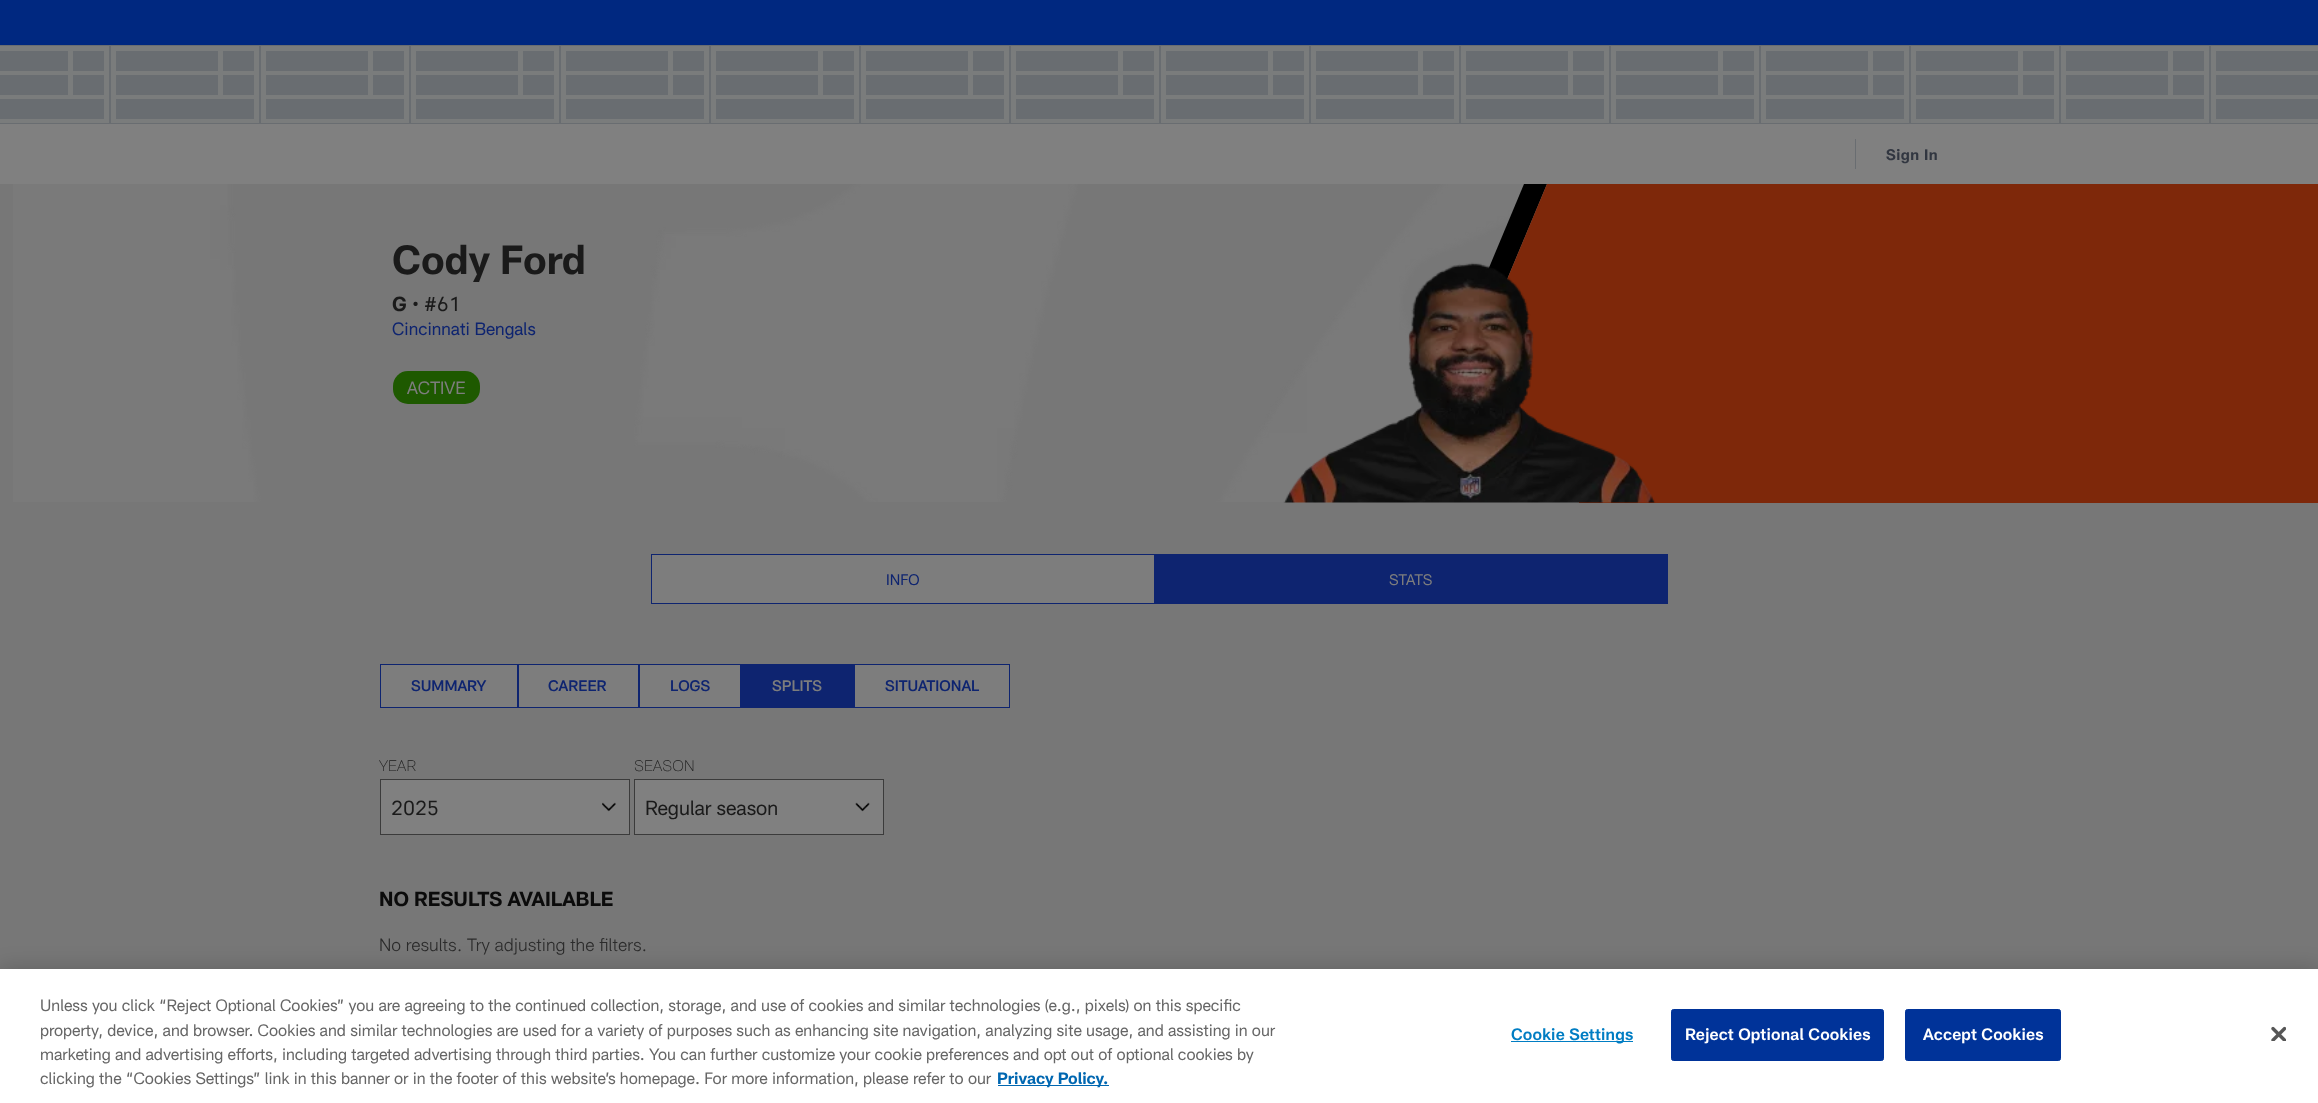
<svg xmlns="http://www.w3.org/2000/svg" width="2318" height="1103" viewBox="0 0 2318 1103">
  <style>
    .t1 { font: bold 15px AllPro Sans; letter-spacing: 0.5px; fill: #313640; }
    .t2 { font: bold 40px AllPro Sans; fill: #1a1a1a; }
    .t3 { font: bold 20px AllPro Sans; fill: #1a1a1a; }
    .t4 { font: 20px AllPro Sans; fill: #1a1a1a; }
    .t5 { font: 17.5px AllPro Sans; fill: #0e2470; }
    .t6 { font: 17.5px AllPro Sans; fill: #7d7d7d; }
    .t7 { font: 15px AllPro Sans; fill: #0e2470; }
    .t8 { font: 15px AllPro Sans; fill: #7d7d7d; }
    .t9 { font: 500 15px AllPro Sans; fill: #0e2470; }
    .t10 { font: 500 15px AllPro Sans; fill: #7d7d7d; }
    .t11 { font: 100 15px AllPro Sans; fill: #1a1a1a; }
    .t12 { font: bold 20px AllPro Sans; fill: #0b0b0b; }
    .t13 { font: 300 17.5px AllPro Sans; fill: #2b2b2b; }
    .t14 { font: 16.25px AllPro Sans; fill: #666; }
    .t15 { font: bold 16.25px AllPro Sans; fill: #0067b1; }
    .t16 { font: 600 16.25px AllPro Sans; letter-spacing: 0.2px; fill: #007dc3; }
    .t17 { font: 600 16.25px AllPro Sans; letter-spacing: 0.2px; fill: #fff; }
  </style>
  <rect width="100%" height="100%" fill="#777"/>
  <rect x="0" y="124" width="2318" height="60" fill="#808080"/>
  <rect x="0" y="0" width="2318" height="45" fill="#002880"/>
  <rect x="0" y="46" width="2318" height="77" fill="#7a7c7c"/>
  <rect x="-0.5" y="45.5" width="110" height="78" fill="none" stroke="#696d71"/>
  <rect x="0" y="51" width="68" height="20" fill="#696d71"/>
  <rect x="73" y="51" width="31" height="20" fill="#696d71"/>
  <rect x="0" y="75" width="68" height="20" fill="#696d71"/>
  <rect x="73" y="75" width="31" height="20" fill="#696d71"/>
  <rect x="0" y="99" width="104" height="20" fill="#696d71"/>
  <rect x="110.5" y="45.5" width="149" height="78" fill="none" stroke="#696d71"/>
  <rect x="116" y="51" width="102" height="20" fill="#696d71"/>
  <rect x="223" y="51" width="31" height="20" fill="#696d71"/>
  <rect x="116" y="75" width="102" height="20" fill="#696d71"/>
  <rect x="223" y="75" width="31" height="20" fill="#696d71"/>
  <rect x="116" y="99" width="138" height="20" fill="#696d71"/>
  <rect x="260.5" y="45.5" width="149" height="78" fill="none" stroke="#696d71"/>
  <rect x="266" y="51" width="102" height="20" fill="#696d71"/>
  <rect x="373" y="51" width="31" height="20" fill="#696d71"/>
  <rect x="266" y="75" width="102" height="20" fill="#696d71"/>
  <rect x="373" y="75" width="31" height="20" fill="#696d71"/>
  <rect x="266" y="99" width="138" height="20" fill="#696d71"/>
  <rect x="410.5" y="45.5" width="149" height="78" fill="none" stroke="#696d71"/>
  <rect x="416" y="51" width="102" height="20" fill="#696d71"/>
  <rect x="523" y="51" width="31" height="20" fill="#696d71"/>
  <rect x="416" y="75" width="102" height="20" fill="#696d71"/>
  <rect x="523" y="75" width="31" height="20" fill="#696d71"/>
  <rect x="416" y="99" width="138" height="20" fill="#696d71"/>
  <rect x="560.5" y="45.5" width="149" height="78" fill="none" stroke="#696d71"/>
  <rect x="566" y="51" width="102" height="20" fill="#696d71"/>
  <rect x="673" y="51" width="31" height="20" fill="#696d71"/>
  <rect x="566" y="75" width="102" height="20" fill="#696d71"/>
  <rect x="673" y="75" width="31" height="20" fill="#696d71"/>
  <rect x="566" y="99" width="138" height="20" fill="#696d71"/>
  <rect x="710.5" y="45.5" width="149" height="78" fill="none" stroke="#696d71"/>
  <rect x="716" y="51" width="102" height="20" fill="#696d71"/>
  <rect x="823" y="51" width="31" height="20" fill="#696d71"/>
  <rect x="716" y="75" width="102" height="20" fill="#696d71"/>
  <rect x="823" y="75" width="31" height="20" fill="#696d71"/>
  <rect x="716" y="99" width="138" height="20" fill="#696d71"/>
  <rect x="860.5" y="45.5" width="149" height="78" fill="none" stroke="#696d71"/>
  <rect x="866" y="51" width="102" height="20" fill="#696d71"/>
  <rect x="973" y="51" width="31" height="20" fill="#696d71"/>
  <rect x="866" y="75" width="102" height="20" fill="#696d71"/>
  <rect x="973" y="75" width="31" height="20" fill="#696d71"/>
  <rect x="866" y="99" width="138" height="20" fill="#696d71"/>
  <rect x="1010.5" y="45.5" width="149" height="78" fill="none" stroke="#696d71"/>
  <rect x="1016" y="51" width="102" height="20" fill="#696d71"/>
  <rect x="1123" y="51" width="31" height="20" fill="#696d71"/>
  <rect x="1016" y="75" width="102" height="20" fill="#696d71"/>
  <rect x="1123" y="75" width="31" height="20" fill="#696d71"/>
  <rect x="1016" y="99" width="138" height="20" fill="#696d71"/>
  <rect x="1160.5" y="45.5" width="149" height="78" fill="none" stroke="#696d71"/>
  <rect x="1166" y="51" width="102" height="20" fill="#696d71"/>
  <rect x="1273" y="51" width="31" height="20" fill="#696d71"/>
  <rect x="1166" y="75" width="102" height="20" fill="#696d71"/>
  <rect x="1273" y="75" width="31" height="20" fill="#696d71"/>
  <rect x="1166" y="99" width="138" height="20" fill="#696d71"/>
  <rect x="1310.5" y="45.5" width="149" height="78" fill="none" stroke="#696d71"/>
  <rect x="1316" y="51" width="102" height="20" fill="#696d71"/>
  <rect x="1423" y="51" width="31" height="20" fill="#696d71"/>
  <rect x="1316" y="75" width="102" height="20" fill="#696d71"/>
  <rect x="1423" y="75" width="31" height="20" fill="#696d71"/>
  <rect x="1316" y="99" width="138" height="20" fill="#696d71"/>
  <rect x="1460.5" y="45.5" width="149" height="78" fill="none" stroke="#696d71"/>
  <rect x="1466" y="51" width="102" height="20" fill="#696d71"/>
  <rect x="1573" y="51" width="31" height="20" fill="#696d71"/>
  <rect x="1466" y="75" width="102" height="20" fill="#696d71"/>
  <rect x="1573" y="75" width="31" height="20" fill="#696d71"/>
  <rect x="1466" y="99" width="138" height="20" fill="#696d71"/>
  <rect x="1610.5" y="45.5" width="149" height="78" fill="none" stroke="#696d71"/>
  <rect x="1616" y="51" width="102" height="20" fill="#696d71"/>
  <rect x="1723" y="51" width="31" height="20" fill="#696d71"/>
  <rect x="1616" y="75" width="102" height="20" fill="#696d71"/>
  <rect x="1723" y="75" width="31" height="20" fill="#696d71"/>
  <rect x="1616" y="99" width="138" height="20" fill="#696d71"/>
  <rect x="1760.5" y="45.5" width="149" height="78" fill="none" stroke="#696d71"/>
  <rect x="1766" y="51" width="102" height="20" fill="#696d71"/>
  <rect x="1873" y="51" width="31" height="20" fill="#696d71"/>
  <rect x="1766" y="75" width="102" height="20" fill="#696d71"/>
  <rect x="1873" y="75" width="31" height="20" fill="#696d71"/>
  <rect x="1766" y="99" width="138" height="20" fill="#696d71"/>
  <rect x="1910.5" y="45.5" width="149" height="78" fill="none" stroke="#696d71"/>
  <rect x="1916" y="51" width="102" height="20" fill="#696d71"/>
  <rect x="2023" y="51" width="31" height="20" fill="#696d71"/>
  <rect x="1916" y="75" width="102" height="20" fill="#696d71"/>
  <rect x="2023" y="75" width="31" height="20" fill="#696d71"/>
  <rect x="1916" y="99" width="138" height="20" fill="#696d71"/>
  <rect x="2060.5" y="45.5" width="149" height="78" fill="none" stroke="#696d71"/>
  <rect x="2066" y="51" width="102" height="20" fill="#696d71"/>
  <rect x="2173" y="51" width="31" height="20" fill="#696d71"/>
  <rect x="2066" y="75" width="102" height="20" fill="#696d71"/>
  <rect x="2173" y="75" width="31" height="20" fill="#696d71"/>
  <rect x="2066" y="99" width="138" height="20" fill="#696d71"/>
  <rect x="2210.5" y="45.5" width="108" height="78" fill="none" stroke="#696d71"/>
  <rect x="2216" y="51" width="102" height="20" fill="#696d71"/>
  <rect x="2216" y="75" width="102" height="20" fill="#696d71"/>
  <rect x="2216" y="99" width="102" height="20" fill="#696d71"/>
  <rect x="1855" y="139" width="1" height="30" fill="#696d71"/>
  <text x="1886" y="160" class="t1">Sign In</text>
  <image x="13" y="184" width="1534" height="318" href="images/1.png"/>
  <path d="M1547 184L1414 502H1391L1524 184Z" fill="#000"/>
  <path d="M1414 502L1547 184H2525V502Z" fill="#7e280a"/>
  <rect x="1579" y="502" width="739" height="1" fill="#7e280a"/>
  <image x="1283" y="262" width="373" height="241" href="images/2.png"/>
  <text x="392" y="274" class="t2">Cody Ford</text>
  <text x="392" y="311" class="t3">G</text>
  <text x="412" y="311" class="t4">• #61</text>
  <text x="392" y="335" class="t5">Cincinnati Bengals</text>
  <rect x="393" y="371" width="87" height="33" rx="15" fill="#1e5900"/>
  <text x="407" y="394" class="t6">ACTIVE</text>
  <rect x="651.5" y="554.5" width="503" height="49" fill="#7d7d7d" stroke="#0e2470"/>
  <text x="886" y="585" class="t7">INFO</text>
  <rect x="1155" y="554" width="513" height="50" fill="#0e2470"/>
  <text x="1389" y="585" class="t8">STATS</text>
  <rect x="380.5" y="664.5" width="137" height="43" fill="#7d7d7d" stroke="#0e2470"/>
  <text x="411" y="691" class="t9">SUMMARY</text>
  <rect x="518.5" y="664.5" width="120" height="43" fill="#7d7d7d" stroke="#0e2470"/>
  <text x="548" y="691" class="t9">CAREER</text>
  <rect x="639.5" y="664.5" width="101" height="43" fill="#7d7d7d" stroke="#0e2470"/>
  <text x="670" y="691" class="t9">LOGS</text>
  <rect x="741" y="664" width="113" height="44" fill="#0e2470"/>
  <text x="772" y="691" class="t10">SPLITS</text>
  <rect x="854.5" y="664.5" width="155" height="43" fill="#7d7d7d" stroke="#0e2470"/>
  <text x="885" y="691" class="t9">SITUATIONAL</text>
  <text x="379" y="771" class="t11">YEAR</text>
  <rect x="381" y="780" width="248" height="54" fill="#808080"/>
  <image x="602" y="802" width="14" height="10" href="images/3.png"/>
  <rect x="380.5" y="779.5" width="249" height="55" fill="none" stroke="#3b3b3b"/>
  <text x="391" y="815" class="t4">2025</text>
  <text x="634" y="771" class="t11">SEASON</text>
  <rect x="635" y="780" width="248" height="54" fill="#808080"/>
  <image x="855" y="802" width="15" height="10" href="images/4.png"/>
  <rect x="634.5" y="779.5" width="249" height="55" fill="none" stroke="#3b3b3b"/>
  <text x="645" y="815" class="t4">Regular season</text>
  <text x="379" y="906" class="t12">NO RESULTS AVAILABLE</text>
  <text x="379" y="951" class="t13">No results. Try adjusting the filters.</text>
  <rect x="0" y="969" width="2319" height="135" fill="#00000033" filter="blur(11px)"/>
  <rect x="0" y="969" width="2318" height="134" fill="#fff"/>
  <text x="40" y="1011" class="t14">Unless you click “Reject Optional Cookies” you are agreeing to the continued collection, storage, and use of cookies and similar technologies (e.g., pixels) on this specific</text>
  <text x="40" y="1036" class="t14">property, device, and browser. Cookies and similar technologies are used for a variety of purposes such as enhancing site navigation, analyzing site usage, and assisting in our</text>
  <text x="40" y="1060" class="t14">marketing and advertising efforts, including targeted advertising through third parties. You can further customize your cookie preferences and opt out of optional cookies by</text>
  <text x="40" y="1084" class="t14">clicking the “Cookies Settings” link in this banner or in the footer of this website’s homepage. For more information, please refer to our</text>
  <rect x="998" y="1085" width="111" height="1" fill="#0067b1"/>
  <text x="997" y="1084" class="t15">Privacy Policy.</text>
  <rect x="1511" y="1041" width="122" height="1" fill="#007dc3"/>
  <text x="1511" y="1040" class="t16">Cookie Settings</text>
  <rect x="1671.5" y="1009.5" width="212" height="51" rx="2" fill="#039" stroke="#039"/>
  <text x="1685" y="1040" class="t17">Reject Optional Cookies</text>
  <rect x="1905.5" y="1009.5" width="155" height="51" rx="2" fill="#039" stroke="#039"/>
  <text x="1923" y="1040" class="t17">Accept Cookies</text>
  <image x="2271" y="1026" width="15" height="15" href="images/5.png"/>
</svg>
